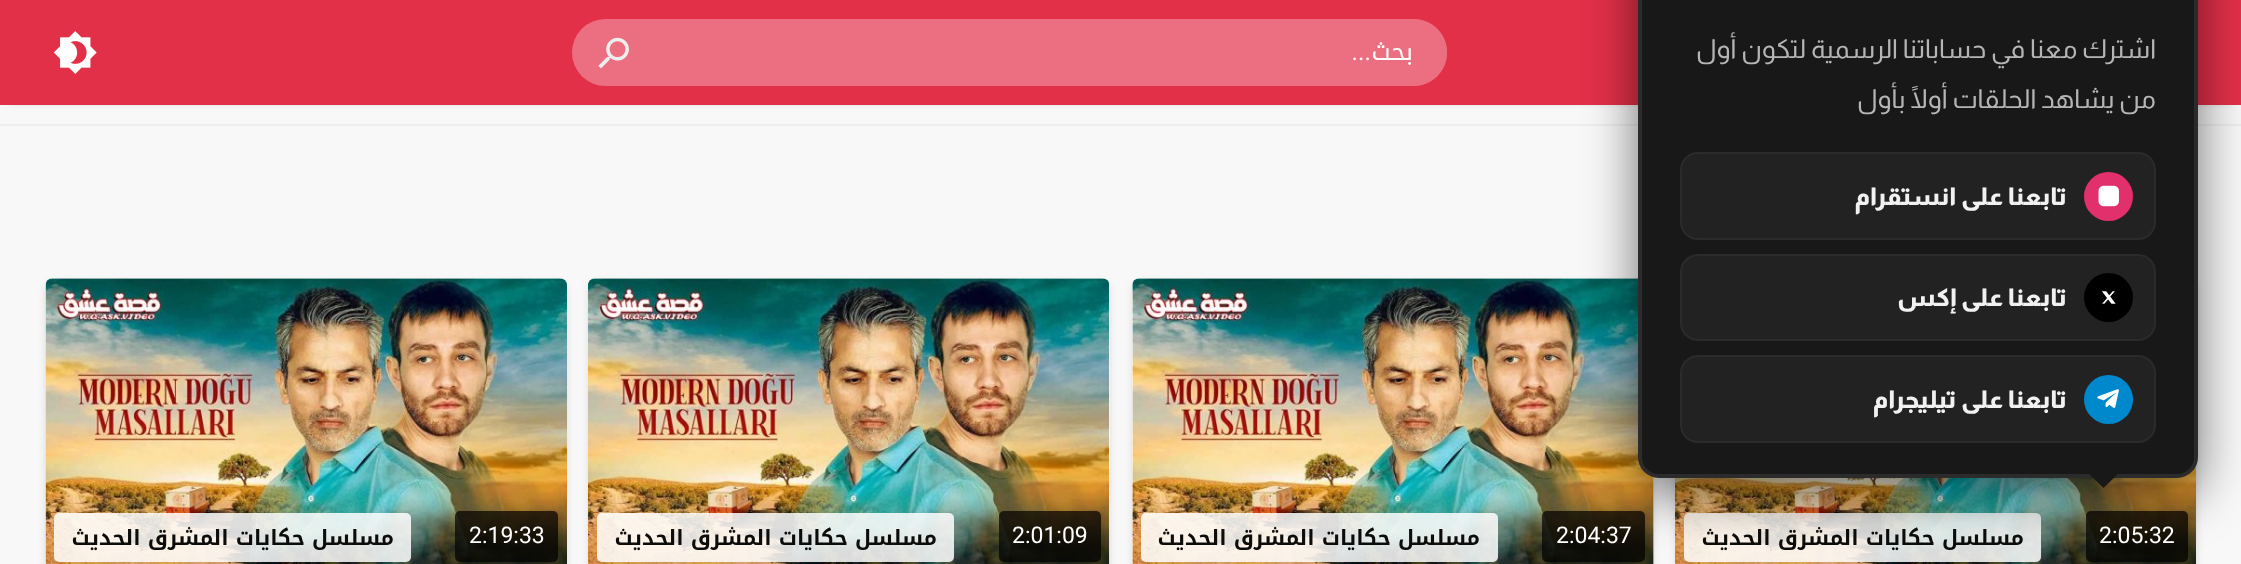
<svg xmlns="http://www.w3.org/2000/svg" width="2241" height="564" viewBox="0 0 2241 564">
  <style>
    .t1 { font: 26.25px Almarai; direction: rtl; fill: #b5b5b5; }
    .t2 { font: 800 24.5px Almarai; direction: rtl; fill: #f1f1f1; }
    .t3 { font: 24.5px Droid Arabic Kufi; direction: rtl; fill: #fff; }
    .t4 { font: 24.5px Roboto; direction: rtl; fill: #fff; }
    .t5 { font: 23px Roboto; fill: #fff; }
    .t6 { font: bold 21px Droid Arabic Kufi; direction: rtl; fill: #0c0c0b; }
  </style>
  <rect width="100%" height="100%" fill="#f8f8f8"/>
  <rect x="9" y="12" width="2224" height="88" fill="#999" filter="blur(4.5px)"/>
  <rect x="0" y="0" width="2241" height="105" fill="#e33049"/>
  <rect x="0" y="124" width="2241" height="2" fill="#eee"/>
  <rect x="1677" y="284" width="518" height="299" rx="5" fill="#ccc" filter="blur(4.5px)"/>
  <image x="1675" y="466" width="521" height="98" href="images/6.png"/>
  <rect x="2086" y="511" width="102" height="51" rx="5" fill="#000000b3"/>
  <rect x="1684" y="513" width="357" height="49" rx="5" fill="#ffffffd9"/>
  <rect x="1134" y="284" width="518" height="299" rx="5" fill="#ccc" filter="blur(4.5px)"/>
  <rect x="1132" y="278" width="522" height="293" rx="7" fill="#fff"/>
  <image x="1132" y="278" width="522" height="286" href="images/7.png"/>
  <rect x="1542" y="511" width="103" height="51" rx="5" fill="#000000b3"/>
  <rect x="1638" y="-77" width="560" height="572" rx="21" fill="#0000008c" filter="blur(26px)"/>
  <rect x="1640" y="-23" width="556" height="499" rx="19" fill="#181818" stroke="#2b2b2b" stroke-width="4"/>
  <text x="2156" y="58" class="t1">اشترك معنا في حساباتنا الرسمية لتكون أول</text>
  <text x="2156" y="108" class="t1">من يشاهد الحلقات أولًا بأول</text>
  <rect x="1681" y="153" width="474" height="86" rx="17" fill="#222" stroke="#2b2b2b" stroke-width="2"/>
  <circle cx="2108.5" cy="196.5" r="24.5" fill="#e1306c"/>
  <image x="2098" y="185" width="21" height="22" href="images/1.png"/>
  <text x="2067" y="205" class="t2">تابعنا على انستقرام</text>
  <rect x="1681" y="255" width="474" height="85" rx="17" fill="#222" stroke="#2b2b2b" stroke-width="2"/>
  <circle cx="2108.5" cy="297.5" r="24.5" fill="#000"/>
  <image x="2102" y="291" width="14" height="13" href="images/2.png"/>
  <text x="2067" y="306" class="t2">تابعنا على إكس</text>
  <rect x="1681" y="356" width="474" height="86" rx="17" fill="#222" stroke="#2b2b2b" stroke-width="2"/>
  <circle cx="2108.5" cy="399.5" r="24.5" fill="#08c"/>
  <image x="2097" y="389" width="22" height="19" href="images/3.png"/>
  <text x="2067" y="408" class="t2">تابعنا على تيليجرام</text>
  <path d="M2086 471H2121L2103.5 488Z" fill="#181818"/>
  <rect x="572" y="19" width="875" height="67" rx="33.5" fill="#eb6f80"/>
  <path d="M660 19H1413.5C1432 19 1447 34 1447 52.5C1447 71 1432 86 1413.5 86H660Z" fill="#eb6f80"/>
  <text x="1413" y="60" class="t3">بحث</text>
  <text x="1371" y="60" class="t4">...</text>
  <image x="598" y="37" width="31" height="32" href="images/4.png"/>
  <image x="53" y="31" width="44" height="43" href="images/5.png"/>
  <text x="2099" y="543" class="t5">2:05:32</text>
  <text x="2024" y="545" class="t6">مسلسل حكايات المشرق الحديث</text>
  <text x="1556" y="543" class="t5">2:04:37</text>
  <rect x="1141" y="513" width="357" height="49" rx="5" fill="#ffffffd9"/>
  <text x="1480" y="545" class="t6">مسلسل حكايات المشرق الحديث</text>
  <rect x="590" y="284" width="518" height="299" rx="5" fill="#ccc" filter="blur(4.5px)"/>
  <rect x="588" y="278" width="522" height="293" rx="7" fill="#fff"/>
  <image x="588" y="278" width="522" height="286" href="images/8.png"/>
  <rect x="999" y="511" width="102" height="51" rx="5" fill="#000000b3"/>
  <text x="1012" y="543" class="t5">2:01:09</text>
  <rect x="597" y="513" width="357" height="49" rx="5" fill="#ffffffd9"/>
  <text x="937" y="545" class="t6">مسلسل حكايات المشرق الحديث</text>
  <rect x="47" y="284" width="518" height="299" rx="5" fill="#ccc" filter="blur(4.5px)"/>
  <rect x="46" y="278" width="521" height="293" rx="7" fill="#fff"/>
  <image x="45" y="278" width="522" height="286" href="images/9.png"/>
  <rect x="455" y="511" width="103" height="51" rx="5" fill="#000000b3"/>
  <text x="469" y="543" class="t5">2:19:33</text>
  <rect x="54" y="513" width="357" height="49" rx="5" fill="#ffffffd9"/>
  <text x="394" y="545" class="t6">مسلسل حكايات المشرق الحديث</text>
</svg>
